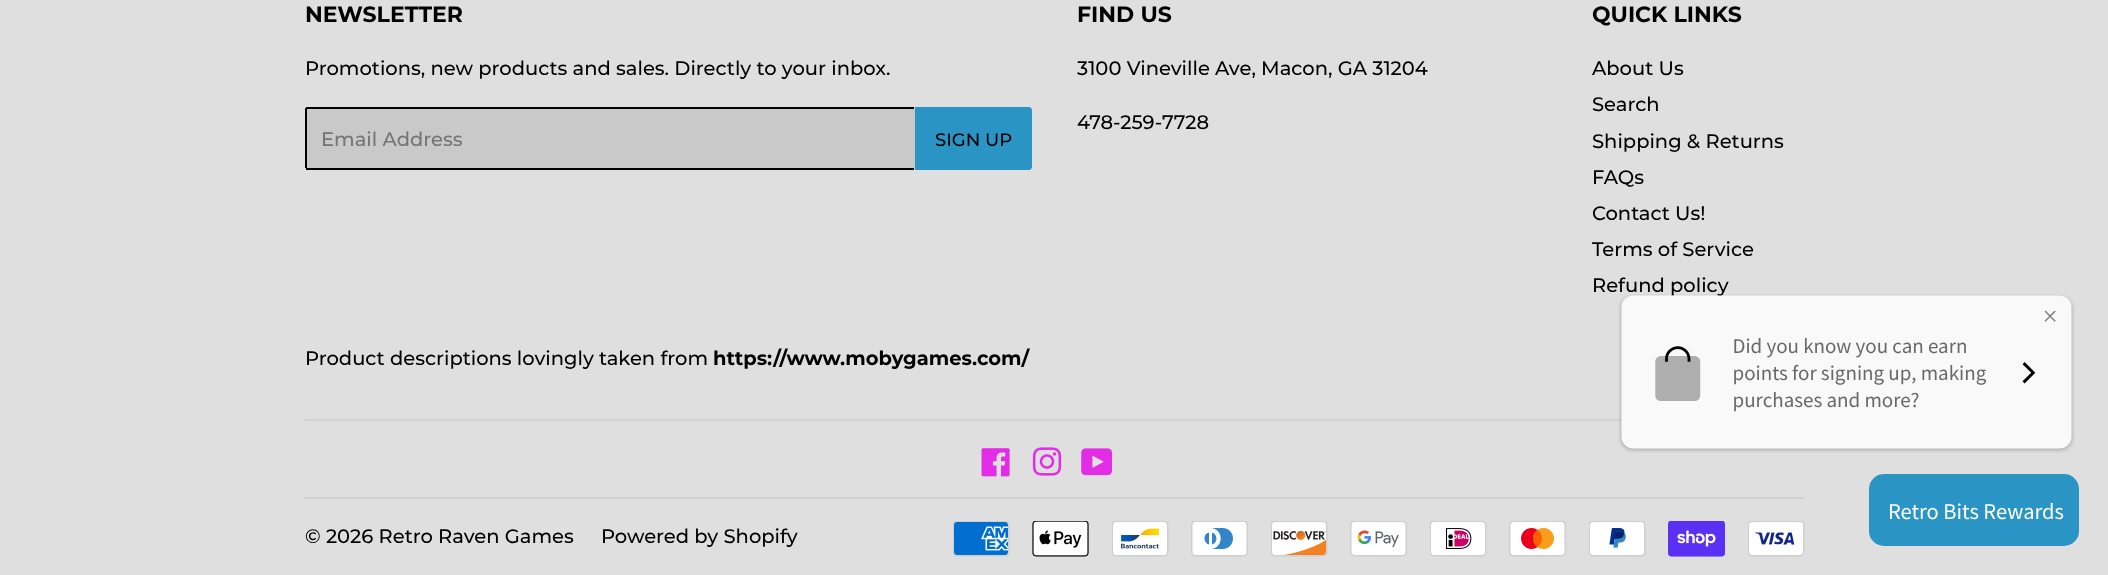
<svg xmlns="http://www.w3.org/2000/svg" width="2108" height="575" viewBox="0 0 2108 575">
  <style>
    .t1 { font: bold 22px Montserrat; fill: #000; }
    .t2 { font: 500 19.5px Montserrat; fill: #000; }
    .t3 { font: 500 19.5px Montserrat; fill: #757575; }
    .t4 { font: 500 18px Montserrat; fill: #000; }
    .t5 { font: bold 19.5px Montserrat; fill: #000; }
  </style>
  <rect width="100%" height="100%" fill="#dfdfdf"/>
  <text x="305" y="22" class="t1">NEWSLETTER</text>
  <text x="305" y="75" class="t2">Promotions, new products and sales. Directly to your inbox.</text>
  <rect x="305" y="107" width="610" height="63" rx="3" fill="#c9c9c9"/>
  <rect x="306" y="107" width="608" height="2" fill="#000"/>
  <rect x="306" y="168" width="608" height="2" fill="#000"/>
  <rect x="305" y="108" width="2" height="60" fill="#000"/>
  <text x="321" y="146" class="t3">Email Address</text>
  <path d="M915 107H1029C1030.5 107 1032 108.5 1032 110V167C1032 168.5 1030.5 170 1029 170H915Z" fill="#2a95c5"/>
  <text x="935" y="146" class="t4">SIGN UP</text>
  <text x="1077" y="22" class="t1">FIND US</text>
  <text x="1077" y="75" class="t2">3100 Vineville Ave, Macon, GA 31204</text>
  <text x="1077" y="129" class="t2">478-259-7728</text>
  <text x="1592" y="22" class="t1">QUICK LINKS</text>
  <text x="1592" y="75" class="t2">About Us</text>
  <text x="1592" y="111" class="t2">Search</text>
  <text x="1592" y="148" class="t2">Shipping &amp; Returns</text>
  <text x="1592" y="184" class="t2">FAQs</text>
  <text x="1592" y="220" class="t2">Contact Us!</text>
  <text x="1592" y="256" class="t2">Terms of Service</text>
  <text x="1592" y="292" class="t2">Refund policy</text>
  <text x="305" y="365" class="t2">Product descriptions lovingly taken from</text>
  <text x="713" y="365" class="t5">https://www.mobygames.com/</text>
  <rect x="305" y="419" width="1317" height="2" fill="#d2d2d2"/>
  <image x="981" y="448" width="29" height="29" href="images/1.png"/>
  <image x="1032" y="447" width="30" height="29" href="images/2.png"/>
  <image x="1081" y="448" width="31" height="28" href="images/3.png"/>
  <rect x="305" y="497" width="1500" height="2" fill="#d2d2d2"/>
  <text x="305" y="543" class="t2">© 2026 Retro Raven Games</text>
  <text x="601" y="543" class="t2">Powered by Shopify</text>
  <image x="953" y="521" width="57" height="36" href="images/4.png"/>
  <image x="1032" y="521" width="57" height="36" href="images/5.png"/>
  <image x="1112" y="521" width="57" height="36" href="images/6.png"/>
  <image x="1191" y="521" width="57" height="36" href="images/7.png"/>
  <image x="1271" y="521" width="57" height="36" href="images/8.png"/>
  <image x="1350" y="521" width="57" height="36" href="images/9.png"/>
  <image x="1430" y="521" width="57" height="36" href="images/10.png"/>
  <image x="1509" y="521" width="57" height="36" href="images/11.png"/>
  <image x="1589" y="521" width="57" height="36" href="images/12.png"/>
  <image x="1668" y="521" width="57" height="36" href="images/13.png"/>
  <image x="1748" y="521" width="57" height="36" href="images/14.png"/>
  <image x="1618" y="294" width="457" height="159" href="images/15.png"/>
  <image x="1869" y="474" width="210" height="72" href="images/16.png"/>
</svg>
